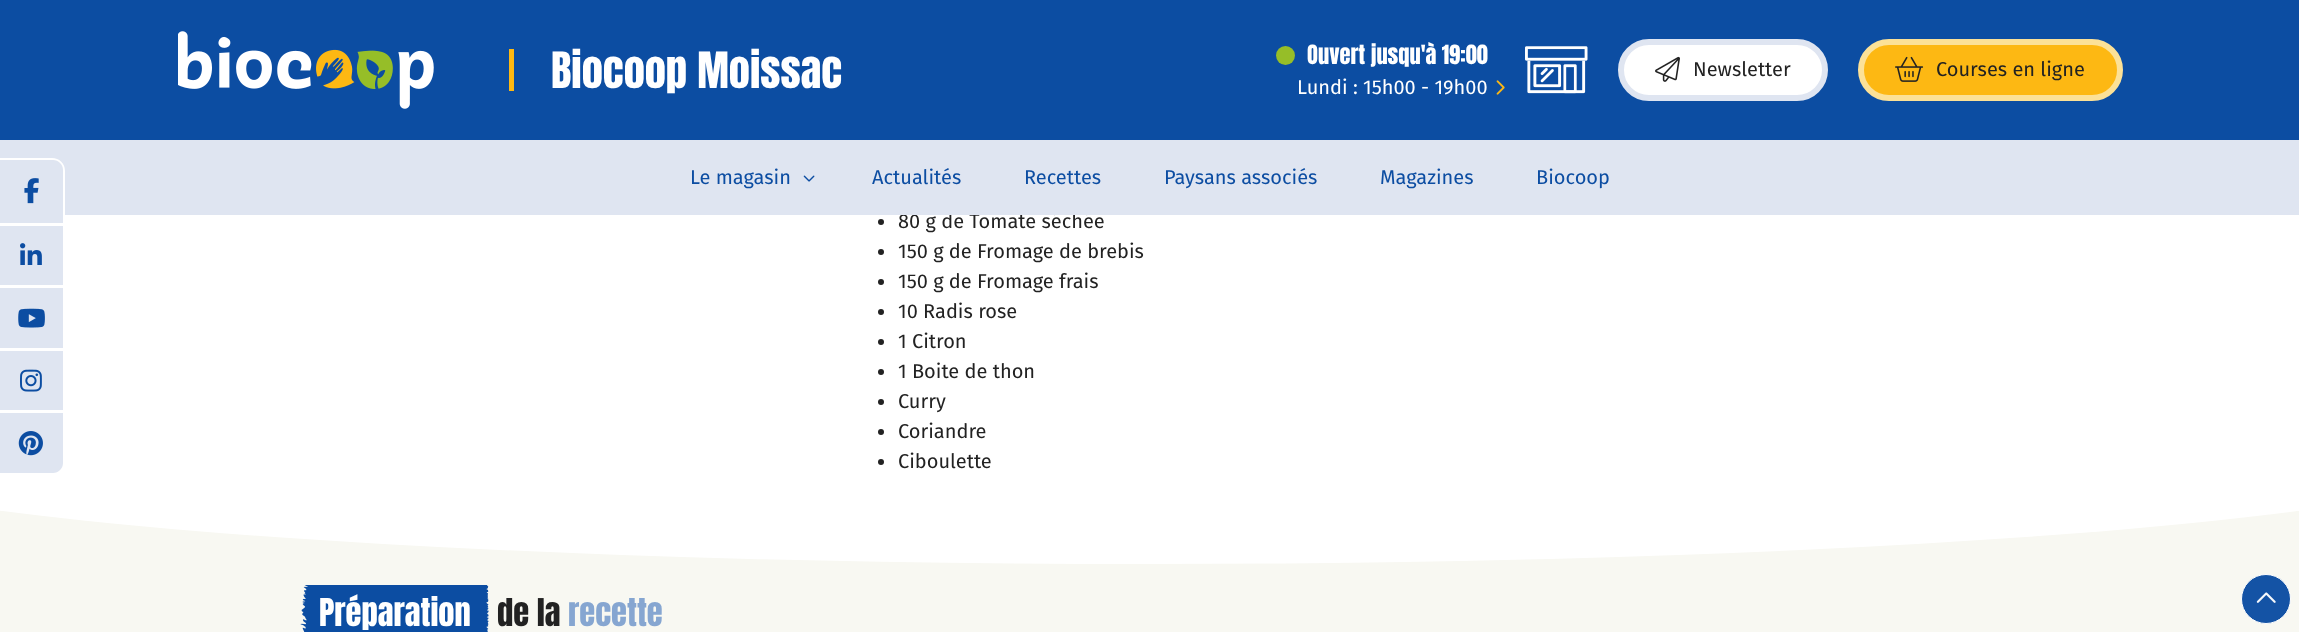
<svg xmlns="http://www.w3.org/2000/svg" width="2299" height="632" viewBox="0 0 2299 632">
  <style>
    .t1 { font: 42.5px Anton; fill: #fff; }
    .t2 { font: 22.5px Anton; fill: #fff; }
    .t3 { font: 20px Fira Sans; fill: #fff; }
    .t4 { font: 20px Fira Sans; fill: #222; }
    .t5 { font: 20px Fira Sans; fill: #0c4da2; }
    .t6 { font: 32.5px Anton; fill: #fff; }
    .t7 { font: 32.5px Anton; fill: #222; }
    .t8 { font: 32.5px Anton; fill: #86a6d1; }
  </style>
  <defs>
    <clipPath id="clip1"><rect x="0" y="498" width="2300" height="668"/></clipPath>
  </defs>
  <rect width="100%" height="100%" fill="#fff"/>
  <rect x="0" y="0" width="2299" height="140" fill="#0c4da2"/>
  <image x="178" y="31" width="256" height="78" href="images/1.png"/>
  <rect x="509" y="49" width="5" height="42" fill="#fdb813"/>
  <text x="551" y="88" class="t1">Biocoop Moissac</text>
  <circle cx="1285.5" cy="55.5" r="9.5" fill="#96be28"/>
  <text x="1307" y="64" class="t2">Ouvert jusqu'à 19:00</text>
  <image x="1525" y="46" width="63" height="48" href="images/2.png"/>
  <text x="1297" y="94" class="t3">Lundi : 15h00 - 19h00</text>
  <image x="1496" y="80" width="9" height="15" href="images/3.png"/>
  <rect x="1621" y="42" width="204" height="56" rx="28" fill="#fff" stroke="#dfe5f1" stroke-width="6"/>
  <image x="1655" y="56" width="25" height="26" href="images/4.png"/>
  <text x="1693" y="76" class="t4">Newsletter</text>
  <rect x="1861" y="42" width="259" height="56" rx="28" fill="#fdb813" stroke="#fce197" stroke-width="6"/>
  <image x="1895" y="56" width="29" height="26" href="images/5.png"/>
  <text x="1936" y="76" class="t4">Courses en ligne</text>
  <text x="898" y="228" class="t4">80 g de Tomate séchée</text>
  <rect x="0" y="140" width="2299" height="75" fill="#dfe5f1"/>
  <text x="690" y="184" class="t5">Le magasin</text>
  <image x="803" y="175" width="12" height="7" href="images/6.png"/>
  <text x="872" y="184" class="t5">Actualités</text>
  <text x="1024" y="184" class="t5">Recettes</text>
  <text x="1164" y="184" class="t5">Paysans associés</text>
  <text x="1380" y="184" class="t5">Magazines</text>
  <text x="1536" y="184" class="t5">Biocoop</text>
  <rect x="0" y="510" width="2299" height="122" fill="#f8f8f2"/>
  <circle cx="2266" cy="599" r="24.5" fill="#1453a5" stroke="#fff"/>
  <image x="2256" y="592" width="20" height="11" href="images/7.png"/>
  <path d="M-.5 159.5H52C58.5 159.5 63.5 164.5 63.5 171V462C63.5 468.5 58.5 473.5 52 473.5H-.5Z" fill="none" stroke="#fff" stroke-width="3"/>
  <path d="M0 160H53C58.5 160 63 164.5 63 170V223H0Z" fill="#dfe5f1"/>
  <image x="24" y="178" width="15" height="26" href="images/8.png"/>
  <rect x="0" y="226" width="63" height="59" fill="#dfe5f1"/>
  <image x="20" y="243" width="22" height="22" href="images/9.png"/>
  <rect x="0" y="288" width="63" height="60" fill="#dfe5f1"/>
  <image x="18" y="308" width="27" height="20" href="images/10.png"/>
  <rect x="0" y="351" width="63" height="59" fill="#dfe5f1"/>
  <image x="20" y="369" width="22" height="23" href="images/11.png"/>
  <path d="M0 413H63V463C63 468.5 58.5 473 53 473H0Z" fill="#dfe5f1"/>
  <image x="18" y="431" width="25" height="25" href="images/12.png"/>
  <circle cx="881" cy="222" r="3" fill="#222"/>
  <circle cx="881" cy="252" r="3" fill="#222"/>
  <text x="898" y="258" class="t4">150 g de Fromage de brebis</text>
  <circle cx="881" cy="282" r="3" fill="#222"/>
  <text x="898" y="288" class="t4">150 g de Fromage frais</text>
  <circle cx="881" cy="312" r="3" fill="#222"/>
  <text x="898" y="318" class="t4">10 Radis rose</text>
  <circle cx="881" cy="342" r="3" fill="#222"/>
  <text x="898" y="348" class="t4">1 Citron</text>
  <circle cx="881" cy="372" r="3" fill="#222"/>
  <text x="898" y="378" class="t4">1 Boite de thon</text>
  <circle cx="881" cy="402" r="3" fill="#222"/>
  <text x="898" y="408" class="t4">Curry</text>
  <circle cx="881" cy="432" r="3" fill="#222"/>
  <text x="898" y="438" class="t4">Coriandre</text>
  <circle cx="881" cy="462" r="3" fill="#222"/>
  <text x="898" y="468" class="t4">Ciboulette</text>
  <g clip-path="url(#clip1)">
    <ellipse cx="1150" cy="445" rx="1380" ry="119" fill="#fff"/>
  </g>
  <image x="300" y="585" width="189" height="47" href="images/13.png"/>
  <text x="319" y="626" class="t6">Préparation</text>
  <text x="497" y="626" class="t7">de la</text>
  <text x="568" y="626" class="t8">recette</text>
</svg>
